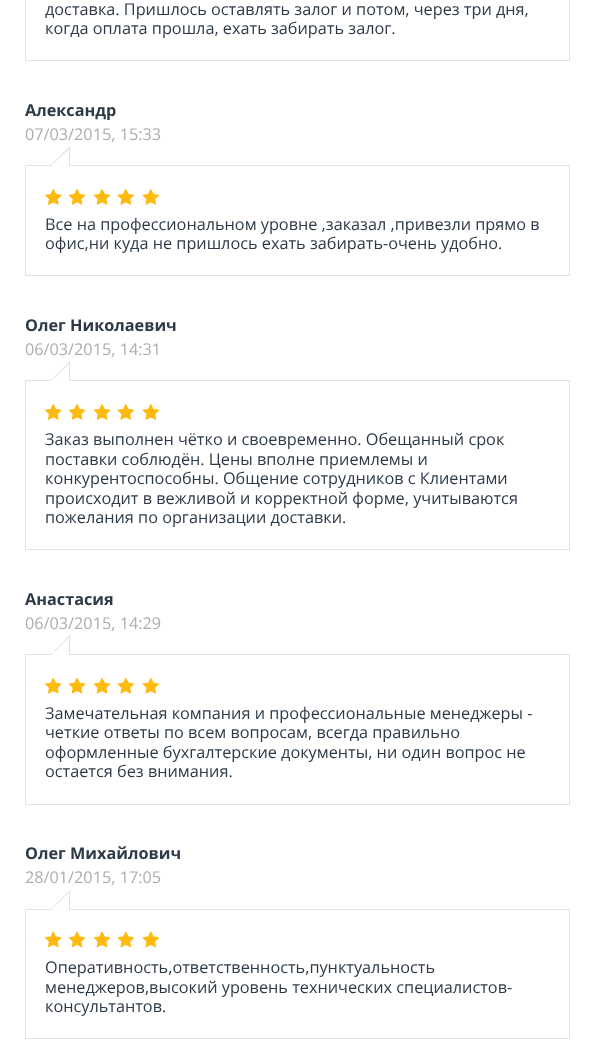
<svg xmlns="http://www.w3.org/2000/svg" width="594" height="1040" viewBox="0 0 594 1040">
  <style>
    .t1 { font: 16.25px Open Sans; fill: #2e3a47; }
    .t2 { font: bold 16.25px Open Sans; fill: #2e3a47; }
    .t3 { font: 16.25px Open Sans; fill: #adadad; }
  </style>
  <rect width="100%" height="100%" fill="#fff"/>
  <rect x="25.5" y="-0.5" width="544" height="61" fill="none" stroke="#dce3ea"/>
  <text x="45" y="15" class="t1">доставка. Пришлось оставлять залог и потом, через три дня,</text>
  <text x="45" y="34" class="t1">когда оплата прошла, ехать забирать залог.</text>
  <text x="25" y="116" class="t2">Александр</text>
  <text x="25" y="140" class="t3">07/03/2015, 15:33</text>
  <rect x="25.5" y="165.5" width="544" height="110" fill="none" stroke="#dce3ea"/>
  <path d="M70 146V166H50Z" fill="#dce3ea"/>
  <path d="M69 149V166H51Z" fill="#fff"/>
  <image x="45" y="189" width="17" height="16" href="images/1.png"/>
  <image x="68" y="189" width="18" height="16" href="images/2.png"/>
  <image x="93" y="189" width="18" height="16" href="images/2.png"/>
  <image x="117" y="189" width="17" height="16" href="images/3.png"/>
  <image x="142" y="189" width="17" height="16" href="images/3.png"/>
  <text x="45" y="230" class="t1">Все на профессиональном уровне ,заказал ,привезли прямо в</text>
  <text x="45" y="249" class="t1">офис,ни куда не пришлось ехать забирать-очень удобно.</text>
  <text x="25" y="331" class="t2">Олег Николаевич</text>
  <text x="25" y="355" class="t3">06/03/2015, 14:31</text>
  <rect x="25.5" y="380.5" width="544" height="169" fill="none" stroke="#dce3ea"/>
  <path d="M70 361V381H50Z" fill="#dce3ea"/>
  <path d="M69 364V381H51Z" fill="#fff"/>
  <image x="45" y="404" width="17" height="16" href="images/1.png"/>
  <image x="68" y="404" width="18" height="16" href="images/2.png"/>
  <image x="93" y="404" width="18" height="16" href="images/2.png"/>
  <image x="117" y="404" width="17" height="16" href="images/3.png"/>
  <image x="142" y="404" width="17" height="16" href="images/3.png"/>
  <text x="45" y="445" class="t1">Заказ выполнен чётко и своевременно. Обещанный срок</text>
  <text x="45" y="465" class="t1">поставки соблюдён. Цены вполне приемлемы и</text>
  <text x="45" y="484" class="t1">конкурентоспособны. Общение сотрудников с Клиентами</text>
  <text x="45" y="504" class="t1">происходит в вежливой и корректной форме, учитываются</text>
  <text x="45" y="523" class="t1">пожелания по организации доставки.</text>
  <text x="25" y="605" class="t2">Анастасия</text>
  <text x="25" y="629" class="t3">06/03/2015, 14:29</text>
  <rect x="25.5" y="654.5" width="544" height="150" fill="none" stroke="#dce3ea"/>
  <path d="M70 635V655H50Z" fill="#dce3ea"/>
  <path d="M69 637.5V655H51Z" fill="#fff"/>
  <image x="45" y="677" width="17" height="17" href="images/4.png"/>
  <image x="68" y="677" width="18" height="17" href="images/5.png"/>
  <image x="93" y="677" width="18" height="17" href="images/5.png"/>
  <image x="117" y="677" width="17" height="17" href="images/6.png"/>
  <image x="142" y="677" width="17" height="17" href="images/6.png"/>
  <text x="45" y="719" class="t1">Замечательная компания и профессиональные менеджеры -</text>
  <text x="45" y="738" class="t1">четкие ответы по всем вопросам, всегда правильно</text>
  <text x="45" y="758" class="t1">оформленные бухгалтерские документы, ни один вопрос не</text>
  <text x="45" y="777" class="t1">остается без внимания.</text>
  <text x="25" y="859" class="t2">Олег Михайлович</text>
  <text x="25" y="883" class="t3">28/01/2015, 17:05</text>
  <rect x="25.5" y="909.5" width="544" height="129" fill="none" stroke="#dce3ea"/>
  <path d="M70 890V910H50Z" fill="#dce3ea"/>
  <path d="M69 892.5V910H51Z" fill="#fff"/>
  <image x="45" y="931" width="17" height="17" href="images/7.png"/>
  <image x="68" y="931" width="18" height="17" href="images/8.png"/>
  <image x="93" y="931" width="18" height="17" href="images/8.png"/>
  <image x="117" y="931" width="17" height="17" href="images/9.png"/>
  <image x="142" y="931" width="17" height="17" href="images/9.png"/>
  <text x="45" y="973" class="t1">Оперативность,ответственность,пунктуальность</text>
  <text x="45" y="993" class="t1">менеджеров,высокий уровень технических специалистов-</text>
  <text x="45" y="1012" class="t1">консультантов.</text>
</svg>
